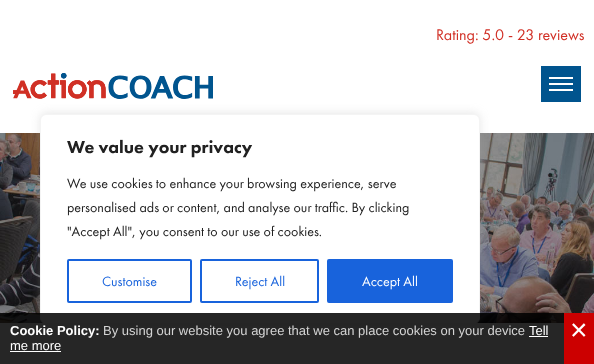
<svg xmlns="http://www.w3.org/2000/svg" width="594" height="364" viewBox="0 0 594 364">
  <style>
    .t1 { font: 16px Futura PT; fill: #d12f25; }
    .t2 { font: 900 18px Futura PT; fill: #212121; }
    .t3 { font: 14px Futura PT; fill: #212121; }
    .t4 { font: 14px Futura PT; fill: #1863dc; }
    .t5 { font: 14px Futura PT; fill: #fff; }
    .t6 { font: bold 13px Liberation Sans; fill: #fff; }
    .t7 { font: 13px Liberation Sans; fill: #d4d4d4; }
    .t8 { font: 13px Liberation Sans; fill: #fff; }
    .t9 { font: 30px Liberation Sans; fill: #fff; }
  </style>
  <rect width="100%" height="100%" fill="#fff"/>
  <text x="436" y="40" class="t1">Rating: 5.0 - 23 reviews</text>
  <image x="13" y="73" width="200" height="26" href="images/1.png"/>
  <rect x="541" y="66" width="40" height="36" fill="#00548e"/>
  <rect x="549" y="83" width="24" height="2" fill="#fff"/>
  <rect x="549" y="77" width="24" height="2" fill="#fff"/>
  <rect x="549" y="89" width="24" height="2" fill="#fff"/>
  <image x="0" y="133" width="594" height="190" href="images/2.png"/>
  <rect x="40" y="113" width="440" height="210" rx="6" fill="#acabab4d" filter="blur(5px)"/>
  <rect x="40.5" y="114.5" width="439" height="209" rx="5.5" fill="#fff" stroke="#f4f4f4"/>
  <text x="67" y="153" class="t2">We value your privacy</text>
  <text x="67" y="188" class="t3">We use cookies to enhance your browsing experience, serve</text>
  <text x="67" y="212" class="t3">personalised ads or content, and analyse our traffic. By clicking</text>
  <text x="67" y="236" class="t3">"Accept All", you consent to our use of cookies.</text>
  <rect x="68" y="260" width="123" height="42" rx="1" fill="none" stroke="#1863dc" stroke-width="2"/>
  <text x="102" y="286" class="t4">Customise</text>
  <rect x="201" y="260" width="117" height="42" rx="1" fill="none" stroke="#1863dc" stroke-width="2"/>
  <text x="235" y="286" class="t4">Reject All</text>
  <rect x="328" y="260" width="124" height="42" rx="1" fill="#1863dc" stroke="#1863dc" stroke-width="2"/>
  <text x="362" y="286" class="t5">Accept All</text>
  <rect x="0" y="313" width="564" height="51" fill="#000000d9"/>
  <text x="10" y="335" class="t6">Cookie Policy:</text>
  <text x="103" y="335" class="t7">By using our website you agree that we can place cookies on your device</text>
  <text x="529" y="335" class="t8">Tell</text>
  <rect x="529" y="336" width="19" height="1" fill="#fff"/>
  <rect x="564" y="313" width="30" height="51" fill="#c00"/>
  <text x="570" y="340" class="t9">×</text>
  <text x="10" y="350" class="t8">me more</text>
  <rect x="10" y="351" width="51" height="1" fill="#fff"/>
</svg>
